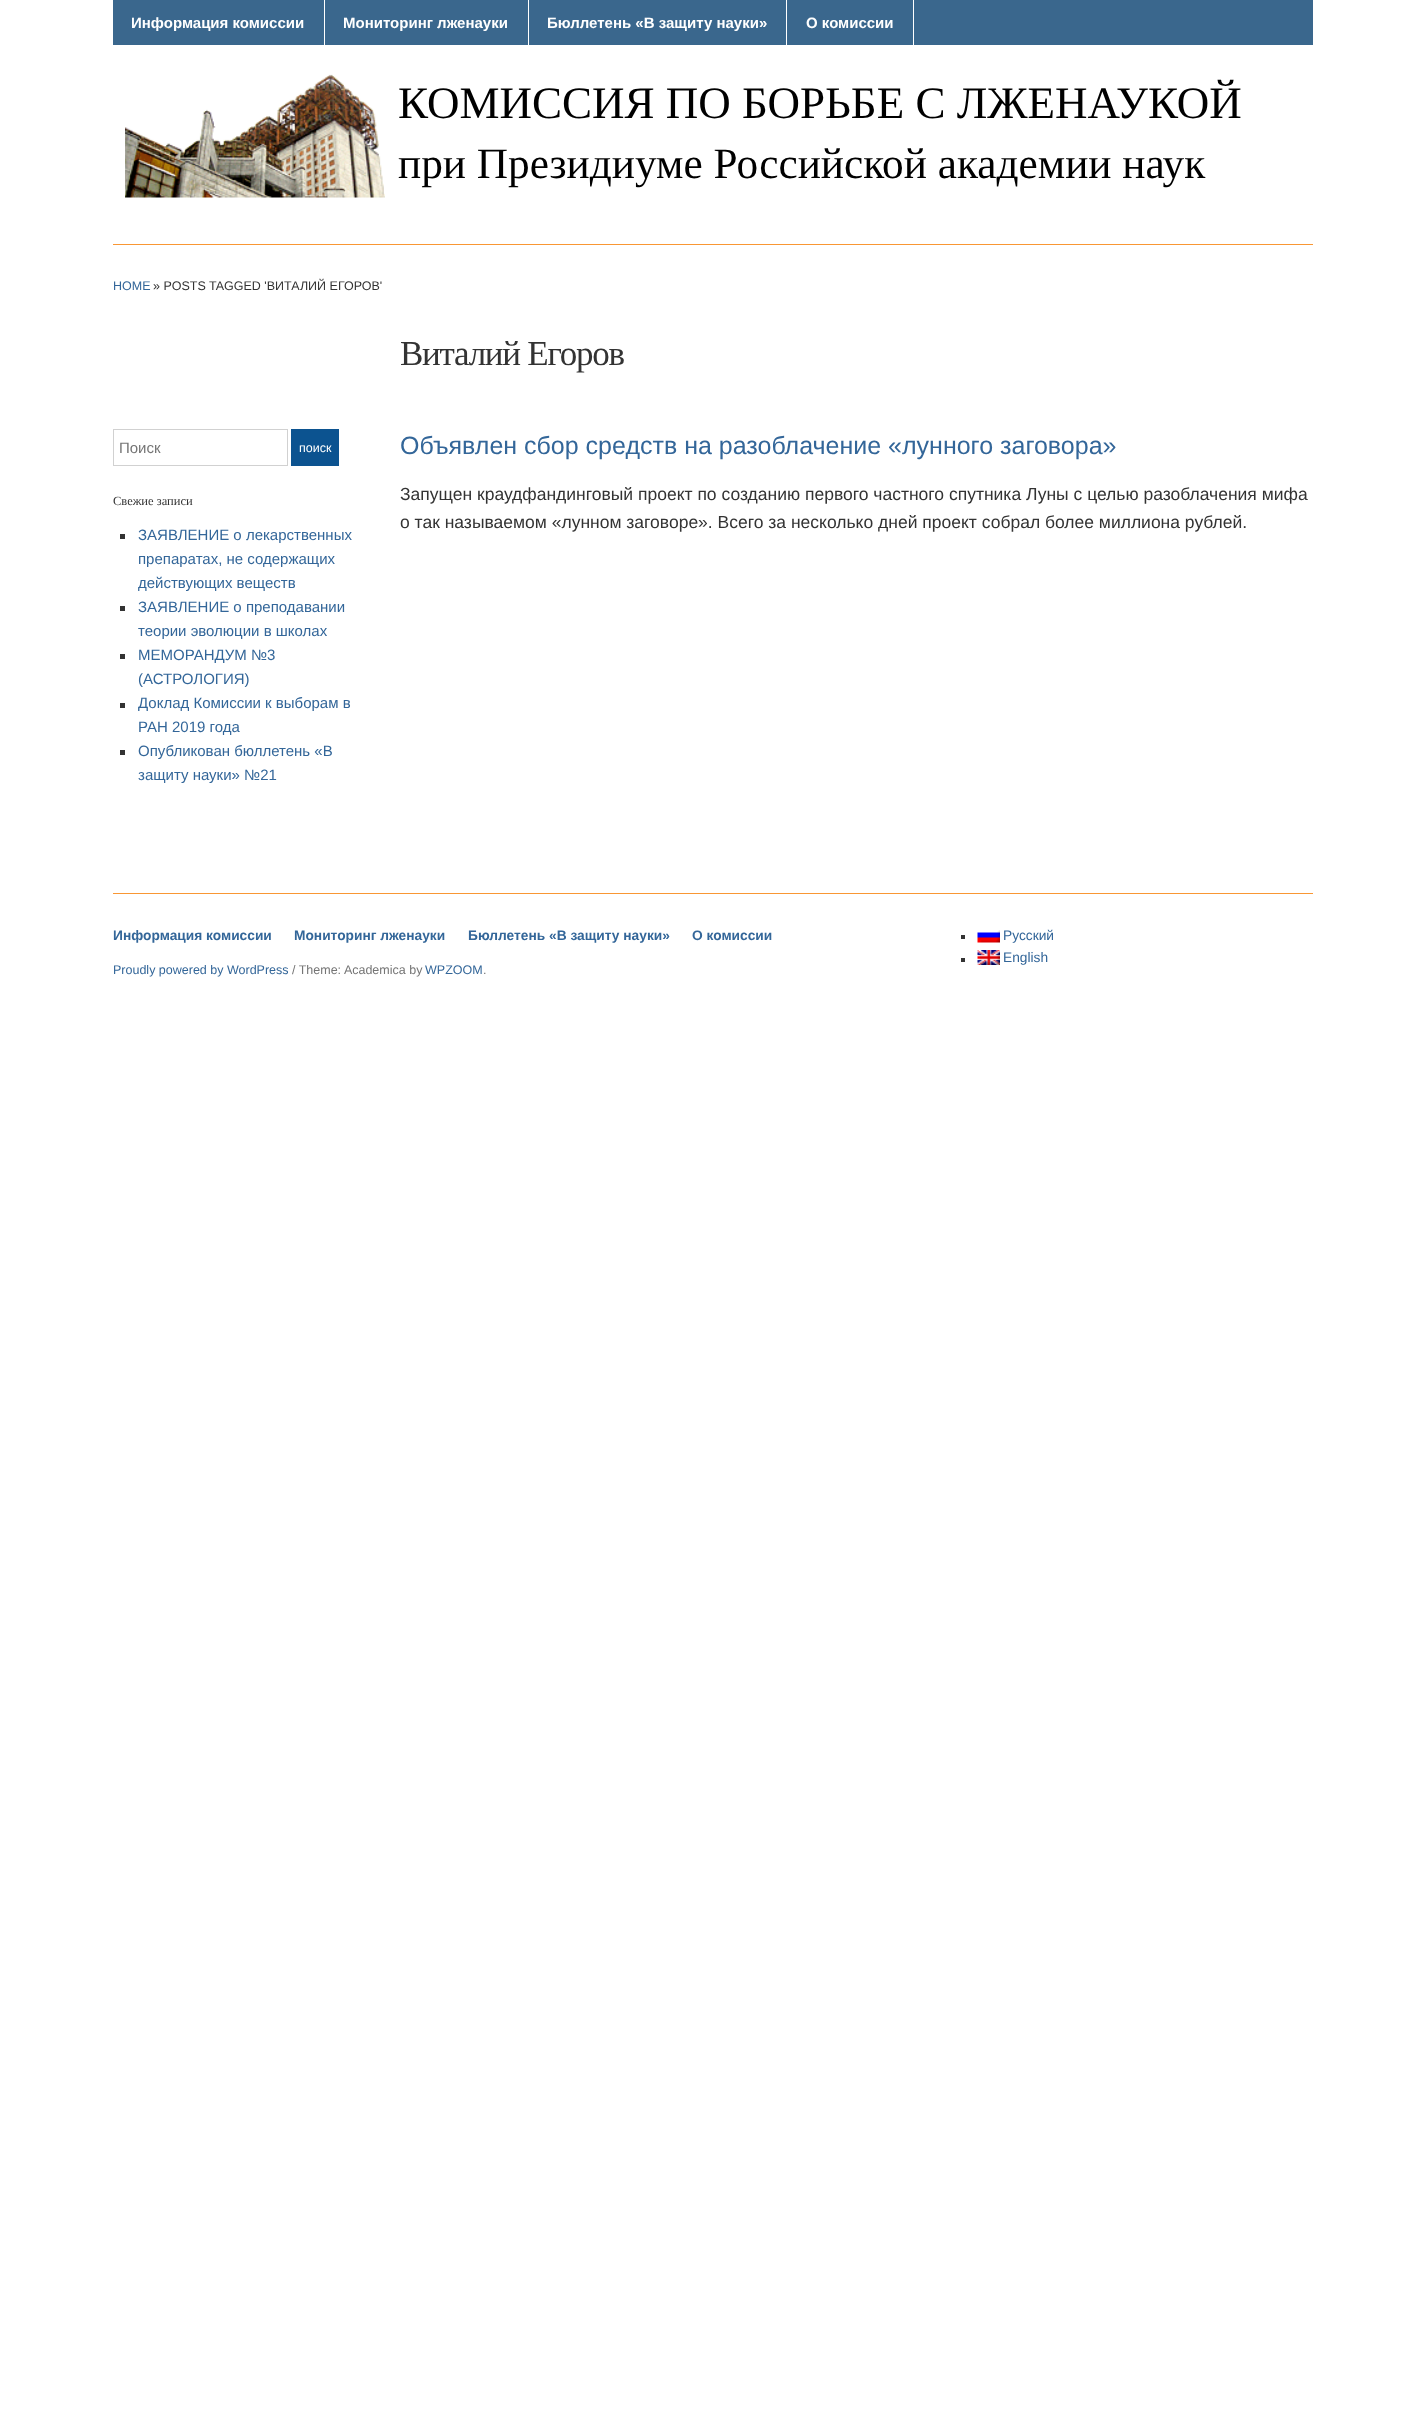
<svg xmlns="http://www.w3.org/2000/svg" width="1425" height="2433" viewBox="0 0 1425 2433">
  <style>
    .t1 { font: bold 15px Liberation Sans; fill: #fff; }
    .t2 { font: 45px Liberation Serif; fill: #000; }
    .t3 { font: 43.3px Liberation Serif; fill: #000; }
    .t4 { font: 12.5px Liberation Sans; fill: #369; }
    .t5 { font: 12.5px Liberation Sans; fill: #333; }
    .t6 { font: 35px Liberation Serif; letter-spacing: -1.25px; fill: #333; }
    .t7 { font: 15px Liberation Sans; fill: #757575; }
    .t8 { font: 12.5px Liberation Sans; fill: #fff; }
    .t9 { font: 12.5px Liberation Serif; fill: #333; }
    .t10 { font: 15px Liberation Sans; fill: #369; }
    .t11 { font: 25px Liberation Sans; fill: #369; }
    .t12 { font: 17.5px Liberation Sans; fill: #333; }
    .t13 { font: bold 13.75px Liberation Sans; fill: #369; }
    .t14 { font: 13.75px Liberation Sans; fill: #369; }
    .t15 { font: 12.5px Liberation Sans; fill: #757575; }
  </style>
  <rect width="100%" height="100%" fill="#fff"/>
  <rect x="113" y="0" width="1200" height="45" fill="#3a678d"/>
  <rect x="324" y="0" width="1" height="45" fill="#fff"/>
  <text x="131" y="28" class="t1">Информация комиссии</text>
  <rect x="528" y="0" width="1" height="45" fill="#fff"/>
  <text x="343" y="28" class="t1">Мониторинг лженауки</text>
  <rect x="786" y="0" width="1" height="45" fill="#fff"/>
  <text x="547" y="28" class="t1">Бюллетень «В защиту науки»</text>
  <rect x="913" y="0" width="1" height="45" fill="#fff"/>
  <text x="806" y="28" class="t1">О комиссии</text>
  <image x="125" y="74" width="260" height="124" href="images/1.png"/>
  <text x="398" y="118" class="t2">КОМИССИЯ ПО БОРЬБЕ С ЛЖЕНАУКОЙ</text>
  <text x="398" y="178" class="t3">при Президиуме Российской академии наук</text>
  <rect x="113" y="244" width="1200" height="1" fill="#f99734"/>
  <text x="113" y="290" class="t4">HOME</text>
  <text x="153" y="290" class="t5">» POSTS TAGGED 'ВИТАЛИЙ ЕГОРОВ'</text>
  <text x="400" y="365" class="t6">Виталий Егоров</text>
  <rect x="113.5" y="429.5" width="174" height="36" fill="none" stroke="#d1d1d1"/>
  <text x="119" y="453" class="t7">Поиск</text>
  <rect x="291" y="429" width="48" height="37" fill="#0c5390"/>
  <text x="299" y="452" class="t8">поиск</text>
  <text x="113" y="505" class="t9">Свежие записи</text>
  <rect x="120" y="534" width="5" height="5" fill="#333"/>
  <text x="138" y="540" class="t10">ЗАЯВЛЕНИЕ о лекарственных</text>
  <text x="138" y="564" class="t10">препаратах, не содержащих</text>
  <text x="138" y="588" class="t10">действующих веществ</text>
  <rect x="120" y="606" width="5" height="5" fill="#333"/>
  <text x="138" y="612" class="t10">ЗАЯВЛЕНИЕ о преподавании</text>
  <text x="138" y="636" class="t10">теории эволюции в школах</text>
  <rect x="120" y="654" width="5" height="5" fill="#333"/>
  <text x="138" y="660" class="t10">МЕМОРАНДУМ №3</text>
  <text x="138" y="684" class="t10">(АСТРОЛОГИЯ)</text>
  <rect x="120" y="703" width="5" height="5" fill="#333"/>
  <text x="138" y="708" class="t10">Доклад Комиссии к выборам в</text>
  <text x="138" y="732" class="t10">РАН 2019 года</text>
  <rect x="120" y="750" width="5" height="5" fill="#333"/>
  <text x="138" y="756" class="t10">Опубликован бюллетень «В</text>
  <text x="138" y="780" class="t10">защиту науки» №21</text>
  <text x="400" y="454" class="t11">Объявлен сбор средств на разоблачение «лунного заговора»</text>
  <text x="400" y="500" class="t12">Запущен краудфандинговый проект по созданию первого частного спутника Луны с целью разоблачения мифа</text>
  <text x="400" y="528" class="t12">о так называемом «лунном заговоре». Всего за несколько дней проект собрал более миллиона рублей.</text>
  <rect x="113" y="893" width="1200" height="1" fill="#f99734"/>
  <text x="113" y="940" class="t13">Информация комиссии</text>
  <text x="294" y="940" class="t13">Мониторинг лженауки</text>
  <text x="468" y="940" class="t13">Бюллетень «В защиту науки»</text>
  <text x="692" y="940" class="t13">О комиссии</text>
  <rect x="961" y="935" width="4" height="4" fill="#333"/>
  <image x="977" y="930" width="23" height="13" href="images/2.png"/>
  <text x="1003" y="940" class="t14">Русский</text>
  <rect x="961" y="958" width="4" height="4" fill="#333"/>
  <image x="977" y="950" width="23" height="15" href="images/3.png"/>
  <text x="1003" y="962" class="t14">English</text>
  <text x="113" y="974" class="t4">Proudly powered by WordPress</text>
  <text x="292" y="974" class="t15">/ Theme: Academica by</text>
  <text x="425" y="974" class="t4">WPZOOM</text>
  <text x="483" y="974" class="t15">.</text>
</svg>
